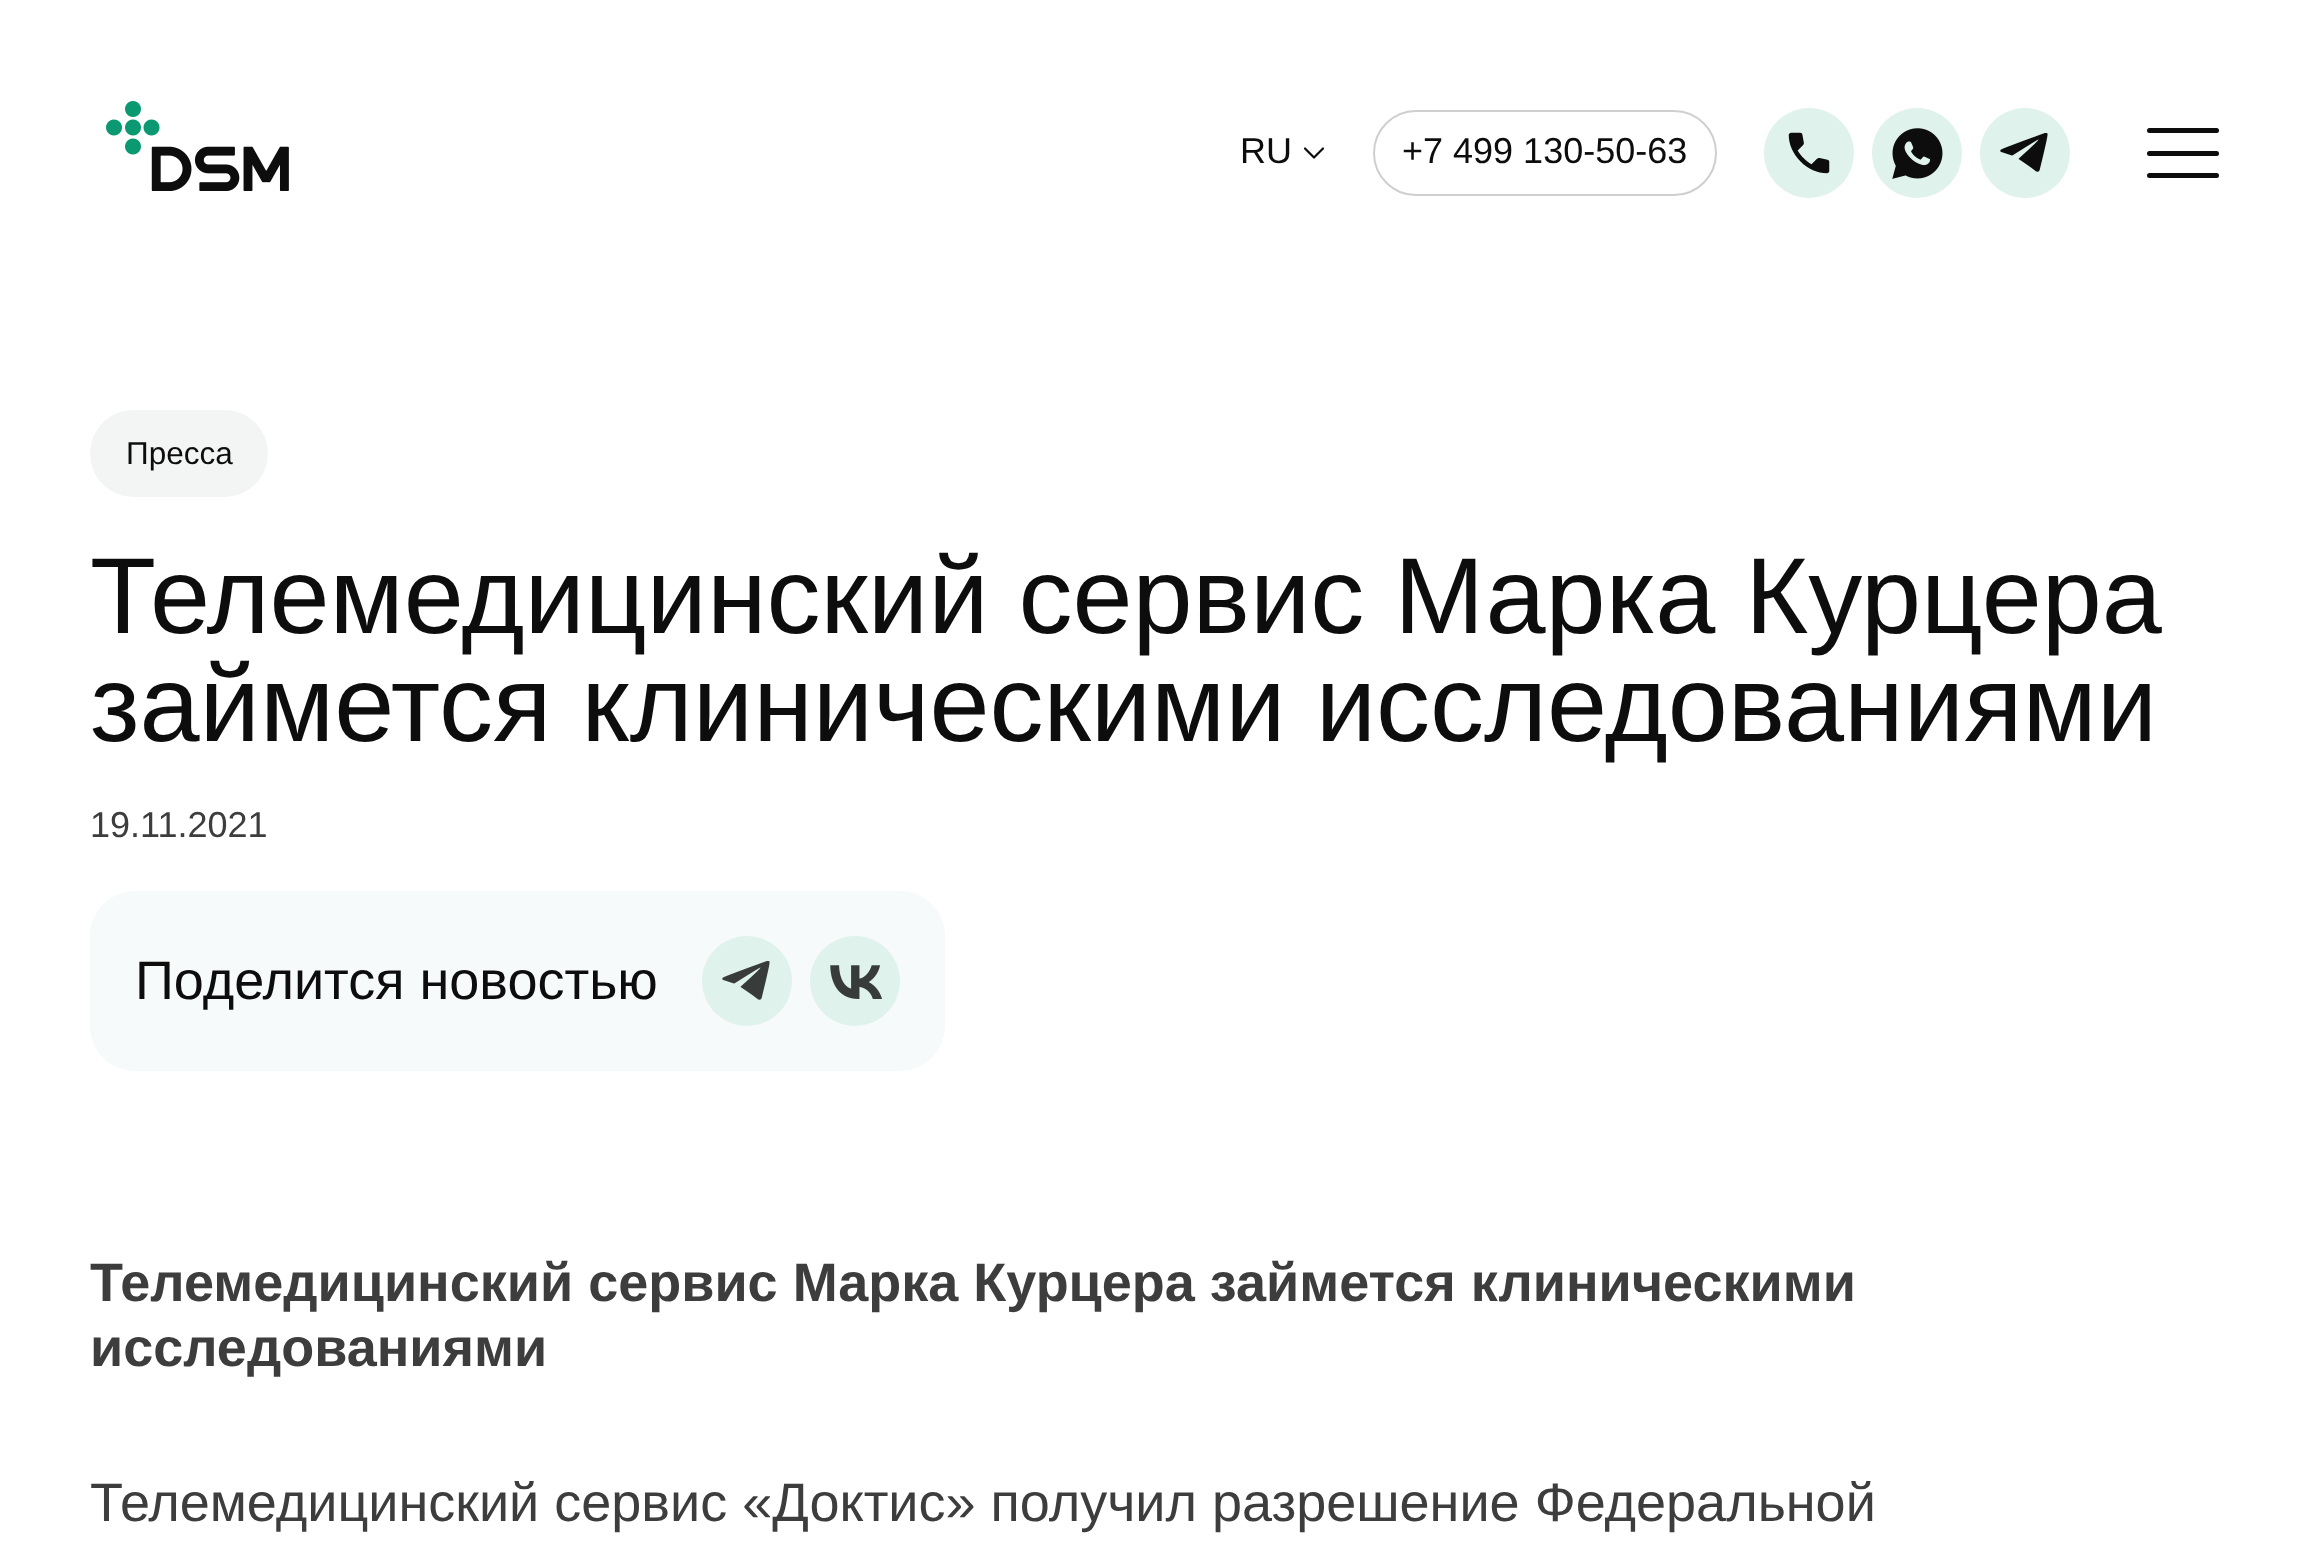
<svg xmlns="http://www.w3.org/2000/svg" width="2317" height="1557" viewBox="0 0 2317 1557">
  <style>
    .t1 { font: 36px Liberation Sans; fill: #0d0d0d; }
    .t2 { font: 31.5px Liberation Sans; fill: #0d0d0d; }
    .t3 { font: 108px Liberation Sans; fill: #0d0d0d; }
    .t4 { font: 36px Liberation Sans; fill: #3d3d3d; }
    .t5 { font: 54px Liberation Sans; fill: #0d0d0d; }
    .t6 { font: bold 54px Liberation Sans; fill: #3d3d3d; }
    .t7 { font: 54px Liberation Sans; fill: #3d3d3d; }
  </style>
  <rect width="100%" height="100%" fill="#fff"/>
  <image x="106" y="101" width="183" height="90" href="images/1.png"/>
  <text x="1240" y="163" class="t1">RU</text>
  <path d="M1305 148.5L1314 157.5L1323 148.5" fill="none" stroke="#0d0d0d" stroke-width="2.2" stroke-linecap="round" stroke-linejoin="round"/>
  <rect x="1374" y="111" width="342" height="84" rx="42" fill="none" stroke="#cfcfcf" stroke-width="2"/>
  <text x="1402" y="163" class="t1">+7 499 130-50-63</text>
  <circle cx="1809" cy="153" r="45" fill="#e0f2ec"/>
  <image x="1788" y="132" width="42" height="42" href="images/2.png"/>
  <circle cx="1917" cy="153" r="45" fill="#e0f2ec"/>
  <image x="1892" y="128" width="51" height="51" href="images/3.png"/>
  <circle cx="2025" cy="153" r="45" fill="#e0f2ec"/>
  <image x="2000" y="133" width="48" height="39" href="images/4.png"/>
  <rect x="2147" y="151" width="72" height="5" rx="2.5" fill="#0d0d0d"/>
  <rect x="2147" y="128" width="72" height="5" rx="2.5" fill="#0d0d0d"/>
  <rect x="2147" y="173" width="72" height="5" rx="2.5" fill="#0d0d0d"/>
  <rect x="90" y="410" width="178" height="87" rx="43.5" fill="#f3f5f4"/>
  <text x="126" y="464" class="t2">Пресса</text>
  <text x="90" y="633" class="t3">Телемедицинский сервис Марка Курцера</text>
  <text x="90" y="741" class="t3">займется клиническими исследованиями</text>
  <text x="90" y="837" class="t4">19.11.2021</text>
  <rect x="90" y="891" width="855" height="180" rx="45" fill="#f7fafa"/>
  <text x="135" y="999" class="t5">Поделится новостью</text>
  <circle cx="747" cy="981" r="45" fill="#e0f2ec"/>
  <image x="722" y="961" width="48" height="39" href="images/5.png"/>
  <circle cx="855" cy="981" r="45" fill="#e0f2ec"/>
  <image x="830" y="965" width="52" height="34" href="images/6.png"/>
  <text x="90" y="1301" class="t6">Телемедицинский сервис Марка Курцера займется клиническими</text>
  <text x="90" y="1366" class="t6">исследованиями</text>
  <text x="90" y="1521" class="t7">Телемедицинский сервис «Доктис» получил разрешение Федеральной</text>
</svg>
